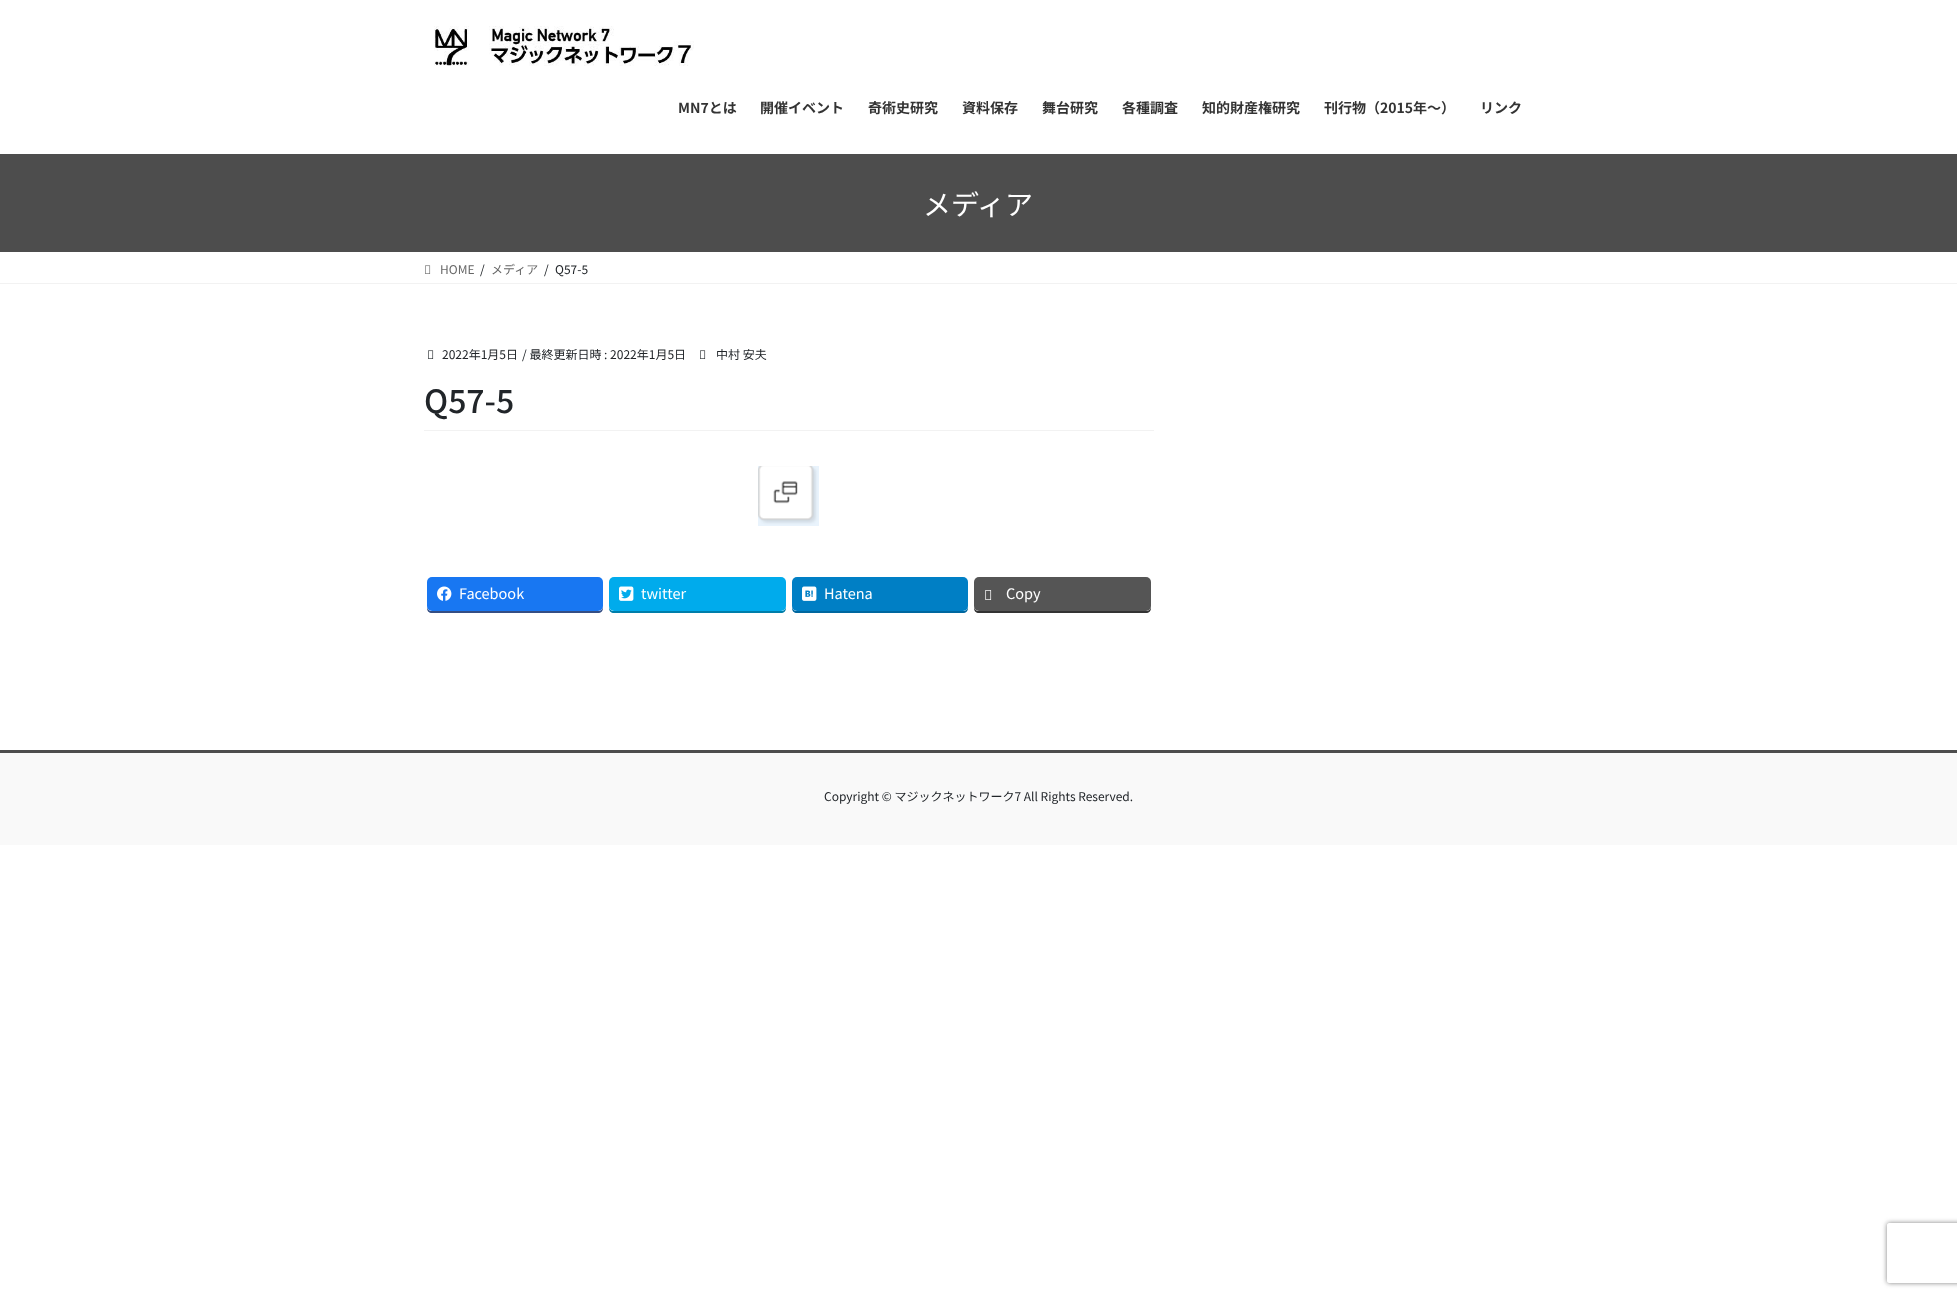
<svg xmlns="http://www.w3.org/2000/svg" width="1957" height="1297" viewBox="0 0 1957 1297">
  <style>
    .t1 { font: bold 14px Noto Sans JP; fill: #333; }
    .t2 { font: 28px Noto Sans JP; fill: #fff; }
    .t3 { font: 12px Noto Sans JP; fill: #666; }
    .t4 { font: 12px Noto Sans JP; fill: #212529; }
    .t5 { font: 500 32px Noto Sans JP; fill: #212529; }
    .t6 { font: 14.5px Noto Sans JP; fill: #fff; }
  </style>
  <defs>
    <clipPath id="clip1"><path d="M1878 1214H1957V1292H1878ZM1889 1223H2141C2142 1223 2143 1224 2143 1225V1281C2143 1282 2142 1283 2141 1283H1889C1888 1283 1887 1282 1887 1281V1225C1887 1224 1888 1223 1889 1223Z" clip-rule="evenodd"/></clipPath>
  </defs>
  <rect width="100%" height="100%" fill="#fff"/>
  <image x="434" y="26" width="260" height="40" href="images/1.png"/>
  <text x="678" y="113" class="t1">MN7とは</text>
  <text x="760" y="113" class="t1">開催イベント</text>
  <text x="868" y="113" class="t1">奇術史研究</text>
  <text x="962" y="113" class="t1">資料保存</text>
  <text x="1042" y="113" class="t1">舞台研究</text>
  <text x="1122" y="113" class="t1">各種調査</text>
  <text x="1202" y="113" class="t1">知的財産権研究</text>
  <text x="1324" y="113" class="t1">刊行物（2015年～）</text>
  <text x="1480" y="113" class="t1">リンク</text>
  <rect x="0" y="154" width="1957" height="98" fill="#4d4d4d"/>
  <text x="923" y="215" class="t2">メディア</text>
  <rect x="0" y="283" width="1957" height="1" fill="#f2f2f2"/>
  <image x="425" y="265" width="6" height="9" href="images/2.png"/>
  <text x="440" y="274" class="t3">HOME</text>
  <text x="480" y="274" class="t4">/</text>
  <text x="491" y="274" class="t3">メディア</text>
  <text x="544" y="274" class="t4">/</text>
  <text x="555" y="274" class="t4">Q57-5</text>
  <rect x="424" y="430" width="730" height="1" fill="#f2f2f2"/>
  <image x="428" y="350" width="6" height="9" href="images/3.png"/>
  <text x="442" y="359" class="t4">2022年1月5日</text>
  <text x="522" y="359" class="t4">/ 最終更新日時 : 2022年1月5日</text>
  <image x="700" y="350" width="6" height="9" href="images/3.png"/>
  <text x="716" y="359" class="t4">中村 安夫</text>
  <text x="424" y="413" class="t5">Q57-5</text>
  <image x="758" y="466" width="61" height="60" href="images/4.png"/>
  <path d="M427 606V608C427 611 429 613 432 613H598C601 613 603 611 603 608V606C603 609 601 611 598 611H432C429 611 427 609 427 606Z" fill="#344e84"/>
  <rect x="427" y="577" width="176" height="34" rx="5" fill="#1877f2"/>
  <image x="437" y="586" width="15" height="15" href="images/5.png"/>
  <text x="459" y="599" class="t6">Facebook</text>
  <path d="M609 606V608C609 611 611 613 614 613H781C784 613 786 611 786 608V606C786 609 784 611 781 611H614C611 611 609 609 609 606Z" fill="#007eaa"/>
  <rect x="609" y="577" width="177" height="34" rx="5" fill="#00abec"/>
  <image x="619" y="586" width="15" height="15" href="images/6.png"/>
  <text x="641" y="599" class="t6">twitter</text>
  <path d="M792 606V608C792 611 794 613 797 613H963C966 613 968 611 968 608V606C968 609 966 611 963 611H797C794 611 792 609 792 606Z" fill="#00679f"/>
  <rect x="792" y="577" width="176" height="34" rx="5" fill="#007fc5"/>
  <image x="802" y="586" width="15" height="15" href="images/7.png"/>
  <text x="824" y="599" class="t6">Hatena</text>
  <path d="M974 606V608C974 611 976 613 979 613H1146C1149 613 1151 611 1151 608V606C1151 609 1149 611 1146 611H979C976 611 974 609 974 606Z" fill="#333"/>
  <rect x="974" y="577" width="177" height="34" rx="5" fill="#555"/>
  <image x="985" y="590" width="7" height="10" href="images/8.png"/>
  <text x="1006" y="599" class="t6">Copy</text>
  <rect x="0" y="753" width="1957" height="92" fill="#f9f9f9"/>
  <rect x="0" y="750" width="1957" height="3" fill="#4d4d4d"/>
  <text x="824" y="801" class="t4">Copyright © マジックネットワーク7 All Rights Reserved.</text>
  <g clip-path="url(#clip1)">
    <rect x="1887" y="1223" width="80" height="60" rx="2" fill="#808080" filter="blur(2.5px)"/>
  </g>
</svg>
